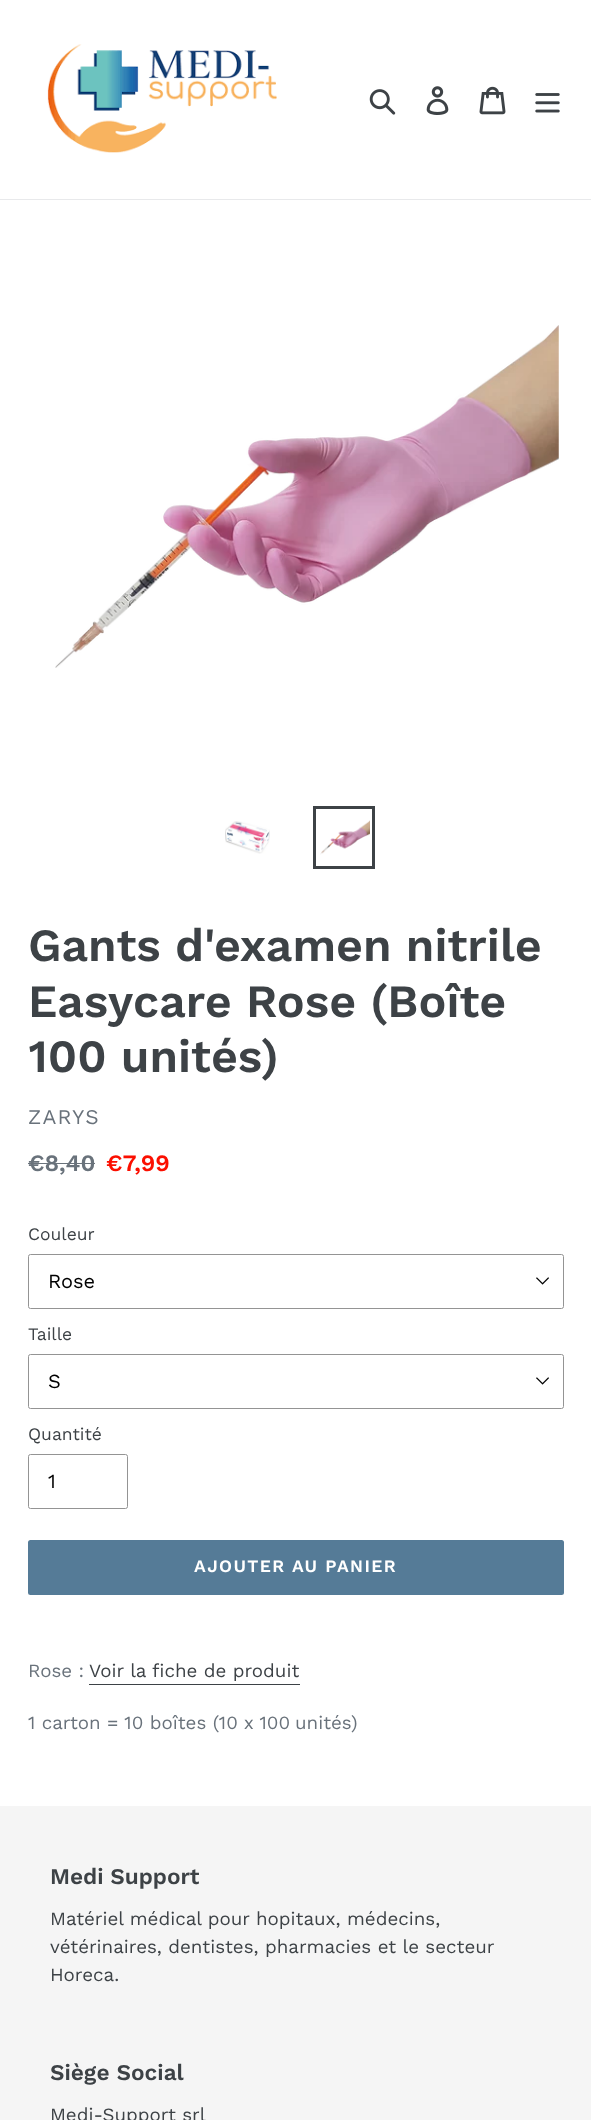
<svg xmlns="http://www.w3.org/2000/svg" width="591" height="2120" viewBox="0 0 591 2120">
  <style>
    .t1 { font: 600 46.25px Work Sans; fill: #3d4246; }
    .t2 { font: 21px Work Sans; letter-spacing: 1.25px; fill: #69727b; }
    .t3 { font: 600 23.5px Work Sans; fill: #69727b; }
    .t4 { font: 600 23.5px Work Sans; fill: #fb0f00; }
    .t5 { font: 17.5px Work Sans; fill: #3d4246; }
    .t6 { font: 20px Work Sans; fill: #000; }
    .t7 { font: 600 17.5px Work Sans; letter-spacing: 1.4px; fill: #fff; }
    .t8 { font: 18.75px Work Sans; fill: #69727b; }
    .t9 { font: 18.75px Work Sans; fill: #3d4246; }
    .t10 { font: 600 22.5px Work Sans; fill: #3d4246; }
  </style>
  <rect width="100%" height="100%" fill="#fff"/>
  <rect x="0" y="199" width="591" height="1" fill="#e8e9eb"/>
  <image x="47" y="44" width="230" height="109" href="images/1.png"/>
  <image x="369" y="89" width="27" height="26" href="images/2.png"/>
  <image x="426" y="86" width="23" height="29" href="images/3.png"/>
  <image x="479" y="86" width="27" height="29" href="images/4.png"/>
  <image x="535" y="93" width="25" height="20" href="images/5.png"/>
  <image x="55" y="325" width="504" height="343" href="images/6.png"/>
  <image x="225" y="821" width="45" height="33" href="images/7.png"/>
  <rect x="314.5" y="807.5" width="59" height="60" fill="none" stroke="#3d4246" stroke-width="3"/>
  <image x="320" y="820" width="50" height="35" href="images/8.png"/>
  <text x="28" y="961" class="t1">Gants d'examen nitrile</text>
  <text x="28" y="1017" class="t1">Easycare Rose (Boîte</text>
  <text x="28" y="1072" class="t1">100 unités)</text>
  <text x="28" y="1124" class="t2">ZARYS</text>
  <text x="28" y="1171" class="t3">€8,40</text>
  <rect x="28" y="1163" width="67" height="1" fill="#69727b"/>
  <text x="106" y="1171" class="t4">€7,99</text>
  <text x="28" y="1240" class="t5">Couleur</text>
  <image x="536" y="1277" width="13" height="8" href="images/9.png"/>
  <rect x="28.5" y="1254.5" width="535" height="54" rx="2" fill="none" stroke="#949494"/>
  <text x="48" y="1288" class="t6">Rose</text>
  <text x="28" y="1340" class="t5">Taille</text>
  <image x="536" y="1377" width="13" height="8" href="images/9.png"/>
  <rect x="28.5" y="1354.5" width="535" height="54" rx="2" fill="none" stroke="#949494"/>
  <text x="48" y="1388" class="t6">S</text>
  <text x="28" y="1440" class="t5">Quantité</text>
  <rect x="28.5" y="1454.5" width="99" height="54" rx="2" fill="none" stroke="#949494"/>
  <text x="48" y="1488" class="t6">1</text>
  <rect x="28" y="1540" width="536" height="55" rx="2.5" fill="#557b97"/>
  <text x="194" y="1572" class="t7">AJOUTER AU PANIER</text>
  <text x="28" y="1677" class="t8">Rose :</text>
  <text x="89" y="1677" class="t9">Voir la fiche de produit</text>
  <rect x="89" y="1684" width="211" height="1" fill="#3d4246"/>
  <text x="28" y="1729" class="t8">1 carton = 10 boîtes (10 x 100</text>
  <text x="295" y="1729" class="t8">unités)</text>
  <rect x="0" y="1806" width="591" height="314" fill="#f5f5f5"/>
  <text x="50" y="1884" class="t10">Medi Support</text>
  <text x="50" y="1925" class="t9">Matériel médical pour hopitaux, médecins,</text>
  <text x="50" y="1953" class="t9">vétérinaires, dentistes, pharmacies et le secteur</text>
  <text x="50" y="1981" class="t9">Horeca.</text>
  <text x="50" y="2080" class="t10">Siège Social</text>
  <text x="50" y="2121" class="t9">Medi-Support srl</text>
</svg>
